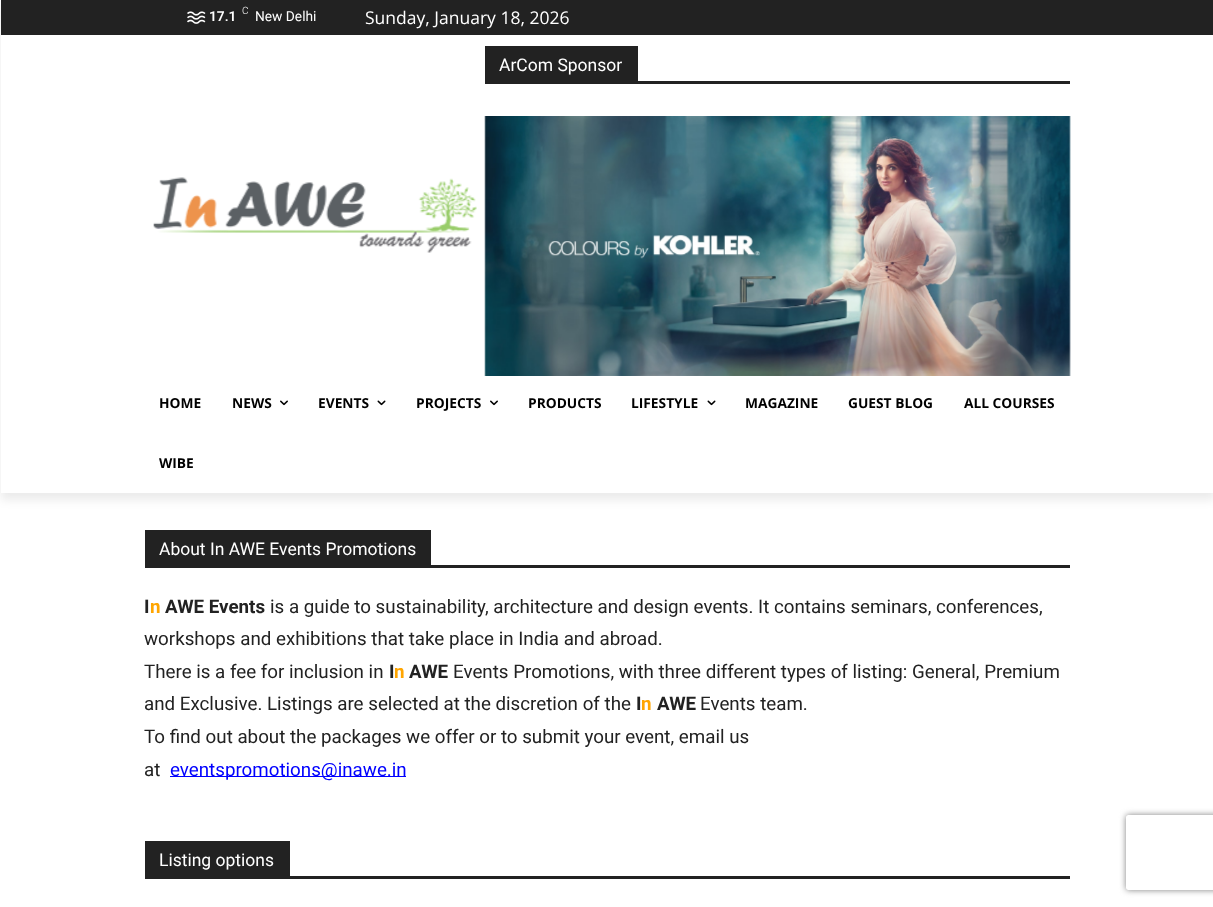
<svg xmlns="http://www.w3.org/2000/svg" width="1213" height="907" viewBox="0 0 1213 907">
  <style>
    .t1 { font: 600 13.75px Roboto; fill: #fff; }
    .t2 { font: 300 10px Roboto; fill: #fff; }
    .t3 { font: 13.75px Roboto; fill: #fff; }
    .t4 { font: 17.5px Open Sans; fill: #fff; }
    .t5 { font: 17.5px Roboto; fill: #fff; }
    .t6 { font: bold 13.75px Open Sans; fill: #000; }
    .t7 { font: bold 18.75px Roboto; fill: #222; }
    .t8 { font: bold 18.75px Roboto; fill: #ffa500; }
    .t9 { font: 18.75px Roboto; fill: #222; }
    .t10 { font: 18.75px Roboto; fill: #00f; }
  </style>
  <defs>
    <clipPath id="clip1"><path d="M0 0H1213V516H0ZM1 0H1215V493H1Z" clip-rule="evenodd"/></clipPath>
    <clipPath id="clip2"><path d="M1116 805H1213V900H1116ZM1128.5 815H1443.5C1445 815 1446 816 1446 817.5V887.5C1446 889 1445 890 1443.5 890H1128.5C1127 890 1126 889 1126 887.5V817.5C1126 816 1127 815 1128.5 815Z" clip-rule="evenodd"/></clipPath>
  </defs>
  <rect width="100%" height="100%" fill="#fff"/>
  <rect x="1" y="0" width="1212" height="35" fill="#222"/>
  <image x="187" y="11" width="19" height="13" href="images/1.png"/>
  <rect x="485" y="81" width="585" height="3" fill="#222"/>
  <rect x="485" y="46" width="153" height="35" fill="#222"/>
  <image x="484" y="116" width="587" height="260" href="images/2.png"/>
  <image x="153" y="177" width="324" height="76" href="images/3.png"/>
  <g clip-path="url(#clip1)">
    <rect x="1" y="8" width="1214" height="492" fill="#00000014" filter="blur(5px)"/>
  </g>
  <text x="209" y="21" class="t1">17.1</text>
  <text x="242" y="14" class="t2">C</text>
  <text x="255" y="21" class="t3">New Delhi</text>
  <text x="365" y="24" class="t4">Sunday, January 18, 2026</text>
  <text x="499" y="71" class="t5">ArCom Sponsor</text>
  <text x="159" y="408" class="t6">HOME</text>
  <text x="232" y="408" class="t6">NEWS</text>
  <image x="280" y="400" width="8" height="6" href="images/4.png"/>
  <text x="318" y="408" class="t6">EVENTS</text>
  <image x="377" y="400" width="9" height="6" href="images/5.png"/>
  <text x="416" y="408" class="t6">PROJECTS</text>
  <image x="490" y="400" width="8" height="6" href="images/4.png"/>
  <text x="528" y="408" class="t6">PRODUCTS</text>
  <text x="631" y="408" class="t6">LIFESTYLE</text>
  <image x="707" y="400" width="9" height="6" href="images/5.png"/>
  <text x="745" y="408" class="t6">MAGAZINE</text>
  <text x="848" y="408" class="t6">GUEST BLOG</text>
  <text x="964" y="408" class="t6">ALL COURSES</text>
  <text x="159" y="468" class="t6">WIBE</text>
  <rect x="145" y="565" width="925" height="3" fill="#222"/>
  <rect x="145" y="530" width="286" height="35" fill="#222"/>
  <text x="159" y="555" class="t5">About In AWE Events Promotions</text>
  <text x="144" y="613" class="t7">I</text>
  <text x="150" y="613" class="t8">n</text>
  <text x="165" y="613" class="t7">AWE Events</text>
  <text x="270" y="613" class="t9">is a guide to sustainability, architecture and design events. It contains seminars, conferences,</text>
  <text x="144" y="645" class="t9">workshops and exhibitions that take place in India and abroad.</text>
  <text x="144" y="678" class="t9">There is a fee for inclusion in</text>
  <text x="389" y="678" class="t7">I</text>
  <text x="394" y="678" class="t8">n</text>
  <text x="409" y="678" class="t7">AWE</text>
  <text x="453" y="678" class="t9">Events Promotions, with three different types of listing: General, Premium</text>
  <text x="144" y="710" class="t9">and Exclusive. Listings are selected at the discretion of the</text>
  <text x="636" y="710" class="t7">I</text>
  <text x="641" y="710" class="t8">n</text>
  <text x="657" y="710" class="t7">AWE</text>
  <text x="700" y="710" class="t9">Events team.</text>
  <text x="144" y="743" class="t9">To find out about the packages we offer or to submit your event, email us</text>
  <text x="144" y="776" class="t9">at</text>
  <rect x="170" y="776" width="236" height="1" fill="#00f"/>
  <text x="170" y="776" class="t10">eventspromotions@inawe.in</text>
  <rect x="145" y="876" width="925" height="3" fill="#222"/>
  <rect x="145" y="841" width="145" height="35" fill="#222"/>
  <text x="159" y="866" class="t5">Listing options</text>
  <g clip-path="url(#clip2)">
    <rect x="1126" y="815" width="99" height="75" rx="2.5" fill="#808080" filter="blur(3px)"/>
  </g>
</svg>
